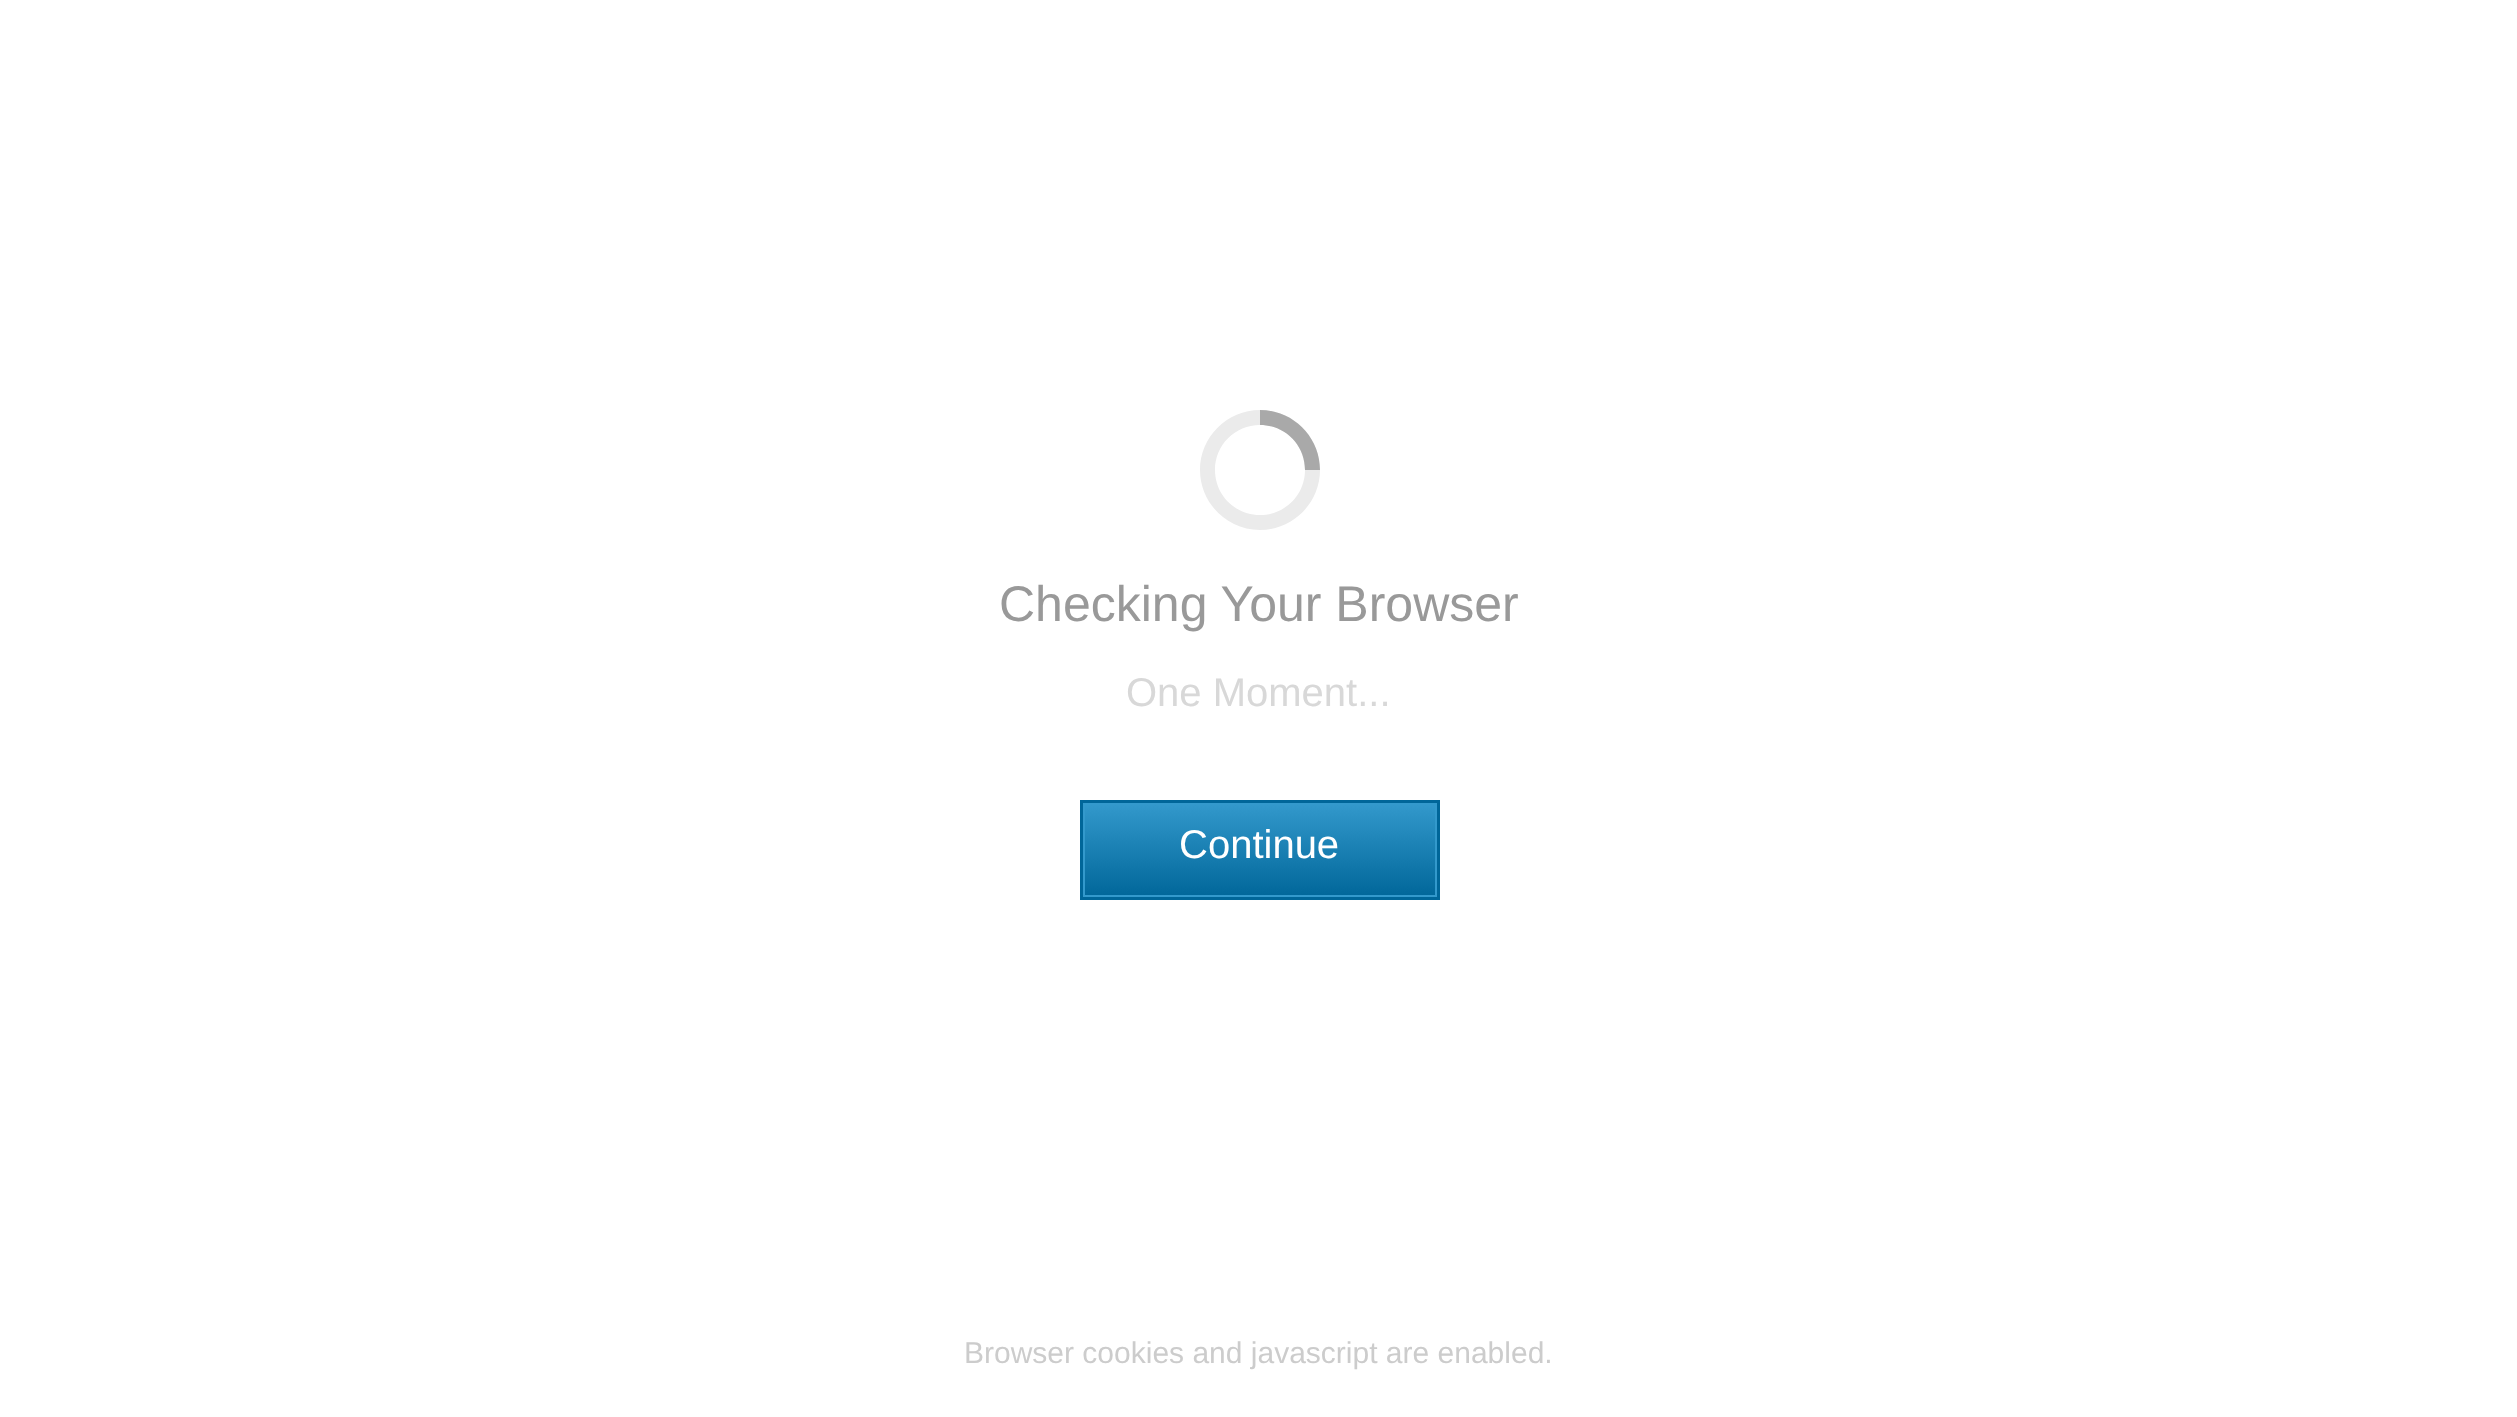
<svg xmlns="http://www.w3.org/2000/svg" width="2517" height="1417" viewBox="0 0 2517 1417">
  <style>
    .t1 { font: 50px Liberation Sans; fill: #999; }
    .t2 { font: 40px Liberation Sans; fill: #d8d8d8; }
    .t3 { font: 40px Liberation Sans; fill: #fff; }
    .t4 { font: 30px Liberation Sans; fill: #ccc; }
  </style>
  <defs>
    <linearGradient id="g1" gradientUnits="userSpaceOnUse" x1="1260" y1="803" x2="1260" y2="898"><stop offset="0" stop-color="#39c"/><stop offset="1" stop-color="#39c" stop-opacity="0"/></linearGradient>
  </defs>
  <rect width="100%" height="100%" fill="#fff"/>
  <path d="M1260 410C1227 410 1200 437 1200 470C1200 503 1227 530 1260 530C1293 530 1320 503 1320 470C1320 437 1293 410 1260 410M1260 425C1285 425 1305 445 1305 470C1305 495 1285 515 1260 515C1235 515 1215 495 1215 470C1215 445 1235 425 1260 425" fill="#ebebeb"/>
  <path d="M1260 410C1293 410 1320 437 1320 470H1305C1305 445 1285 425 1260 425Z" fill="#999999cc"/>
  <text x="999" y="621" class="t1">Checking Your Browser</text>
  <text x="1126" y="706" class="t2">One Moment...</text>
  <rect x="1082.5" y="802.5" width="355" height="95" fill="#069" stroke="#39c" stroke-width="5"/>
  <rect x="1085" y="805" width="350" height="90" fill="url(#g1)"/>
  <rect x="1081.5" y="801.5" width="357" height="97" fill="none" stroke="#069" stroke-width="3"/>
  <text x="1179" y="858" class="t3">Continue</text>
  <text x="964" y="1363" class="t4">Browser cookies and javascript are enabled.</text>
</svg>
